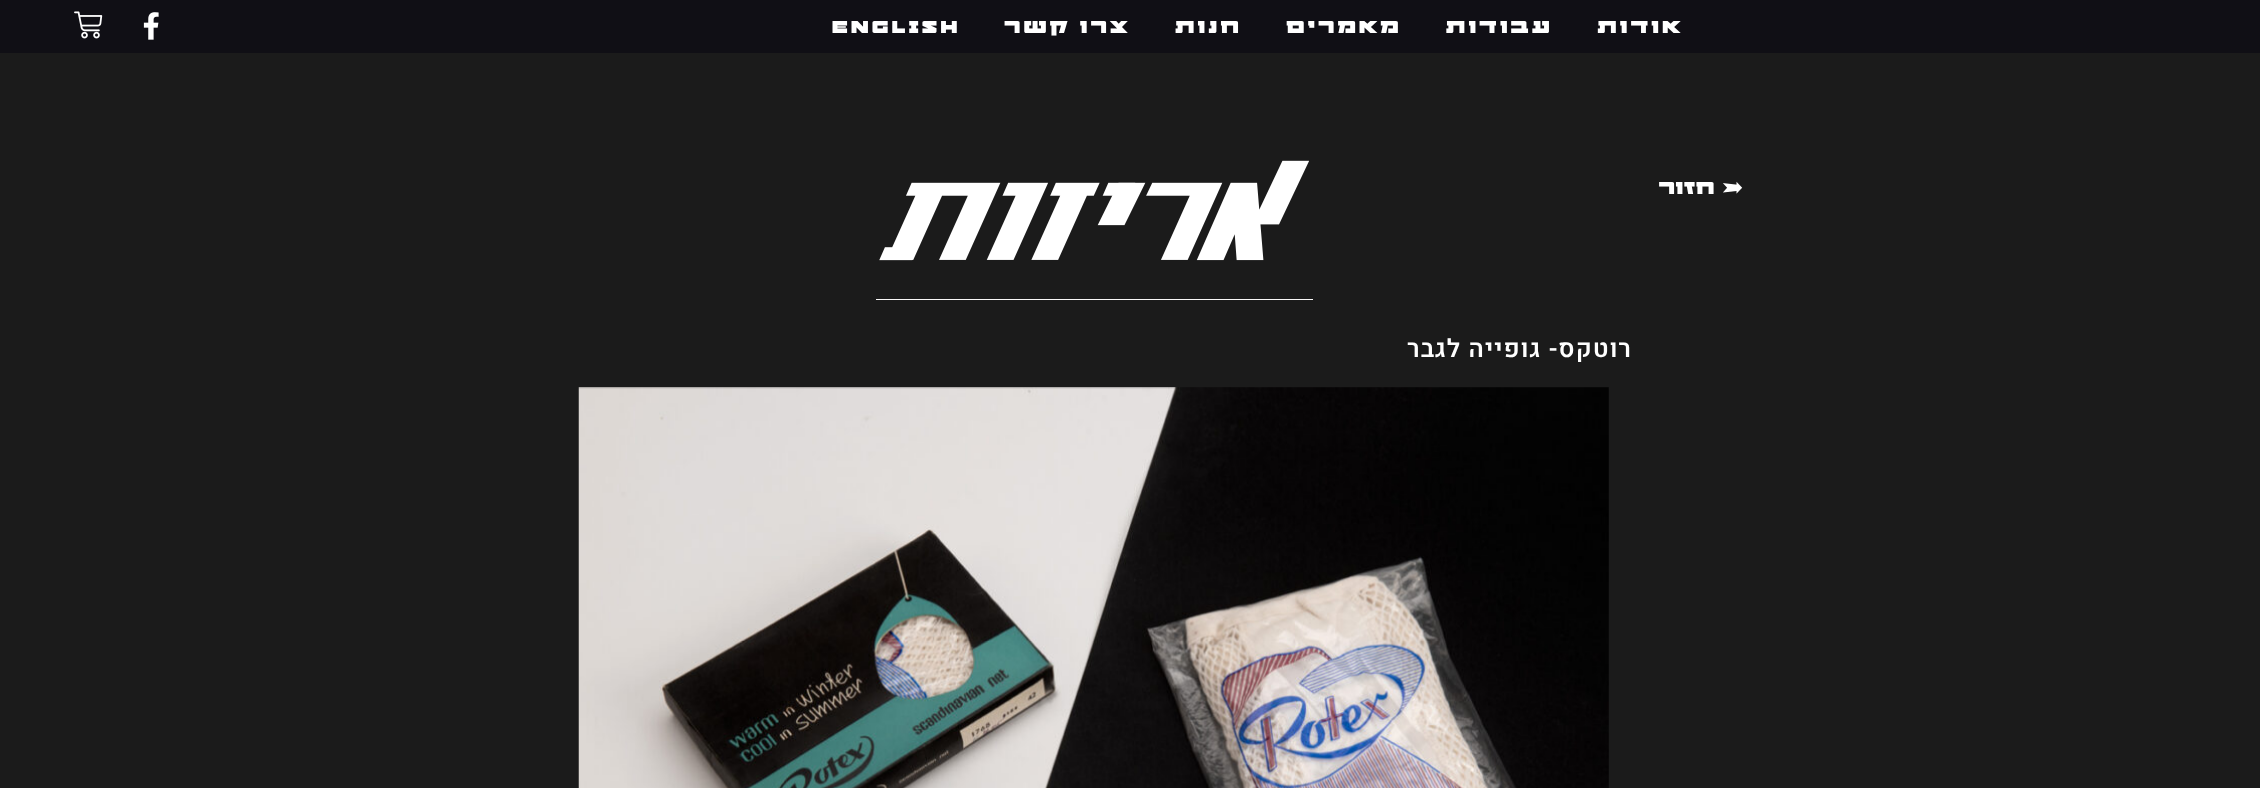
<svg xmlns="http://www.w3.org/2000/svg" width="2260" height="788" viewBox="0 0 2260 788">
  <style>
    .t1 { font: 900 20px 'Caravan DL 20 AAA'; letter-spacing: 3.5px; direction: rtl; fill: #fff; }
    .t2 { font: 900 20px 'Caravan DL 20 AAA'; letter-spacing: 3.5px; fill: #fff; }
    .t3 { font: 900 20px 'Caravan DL 20 AAA'; letter-spacing: 1px; direction: rtl; fill: #fff; }
    .t4 { font: 600 25px Heebo; letter-spacing: 1.1px; direction: rtl; fill: #fff; }
  </style>
  <rect width="100%" height="100%" fill="#1b1b1b"/>
  <rect x="0" y="0" width="2260" height="53" fill="#100f15"/>
  <text x="1684" y="33" class="t1">אודות</text>
  <text x="1553" y="33" class="t1">עבודות</text>
  <text x="1402" y="33" class="t1">מאמרים</text>
  <text x="1242" y="33" class="t1">חנות</text>
  <text x="1131" y="33" class="t1">צרו קשר</text>
  <text x="832" y="33" class="t2">English</text>
  <image x="143" y="12" width="16" height="28" href="images/1.png"/>
  <image x="74" y="11" width="29" height="28" href="images/2.png"/>
  <image x="1723" y="181" width="20" height="13" href="images/3.png"/>
  <text x="1715" y="194" class="t3">חזור</text>
  <image x="879" y="160" width="430" height="101" href="images/4.png"/>
  <rect x="876" y="299" width="437" height="1" fill="#f9f8f8"/>
  <text x="1632" y="357" class="t4">רוטקס- גופייה לגבר</text>
  <image x="578" y="387" width="1031" height="401" href="images/5.png"/>
</svg>
